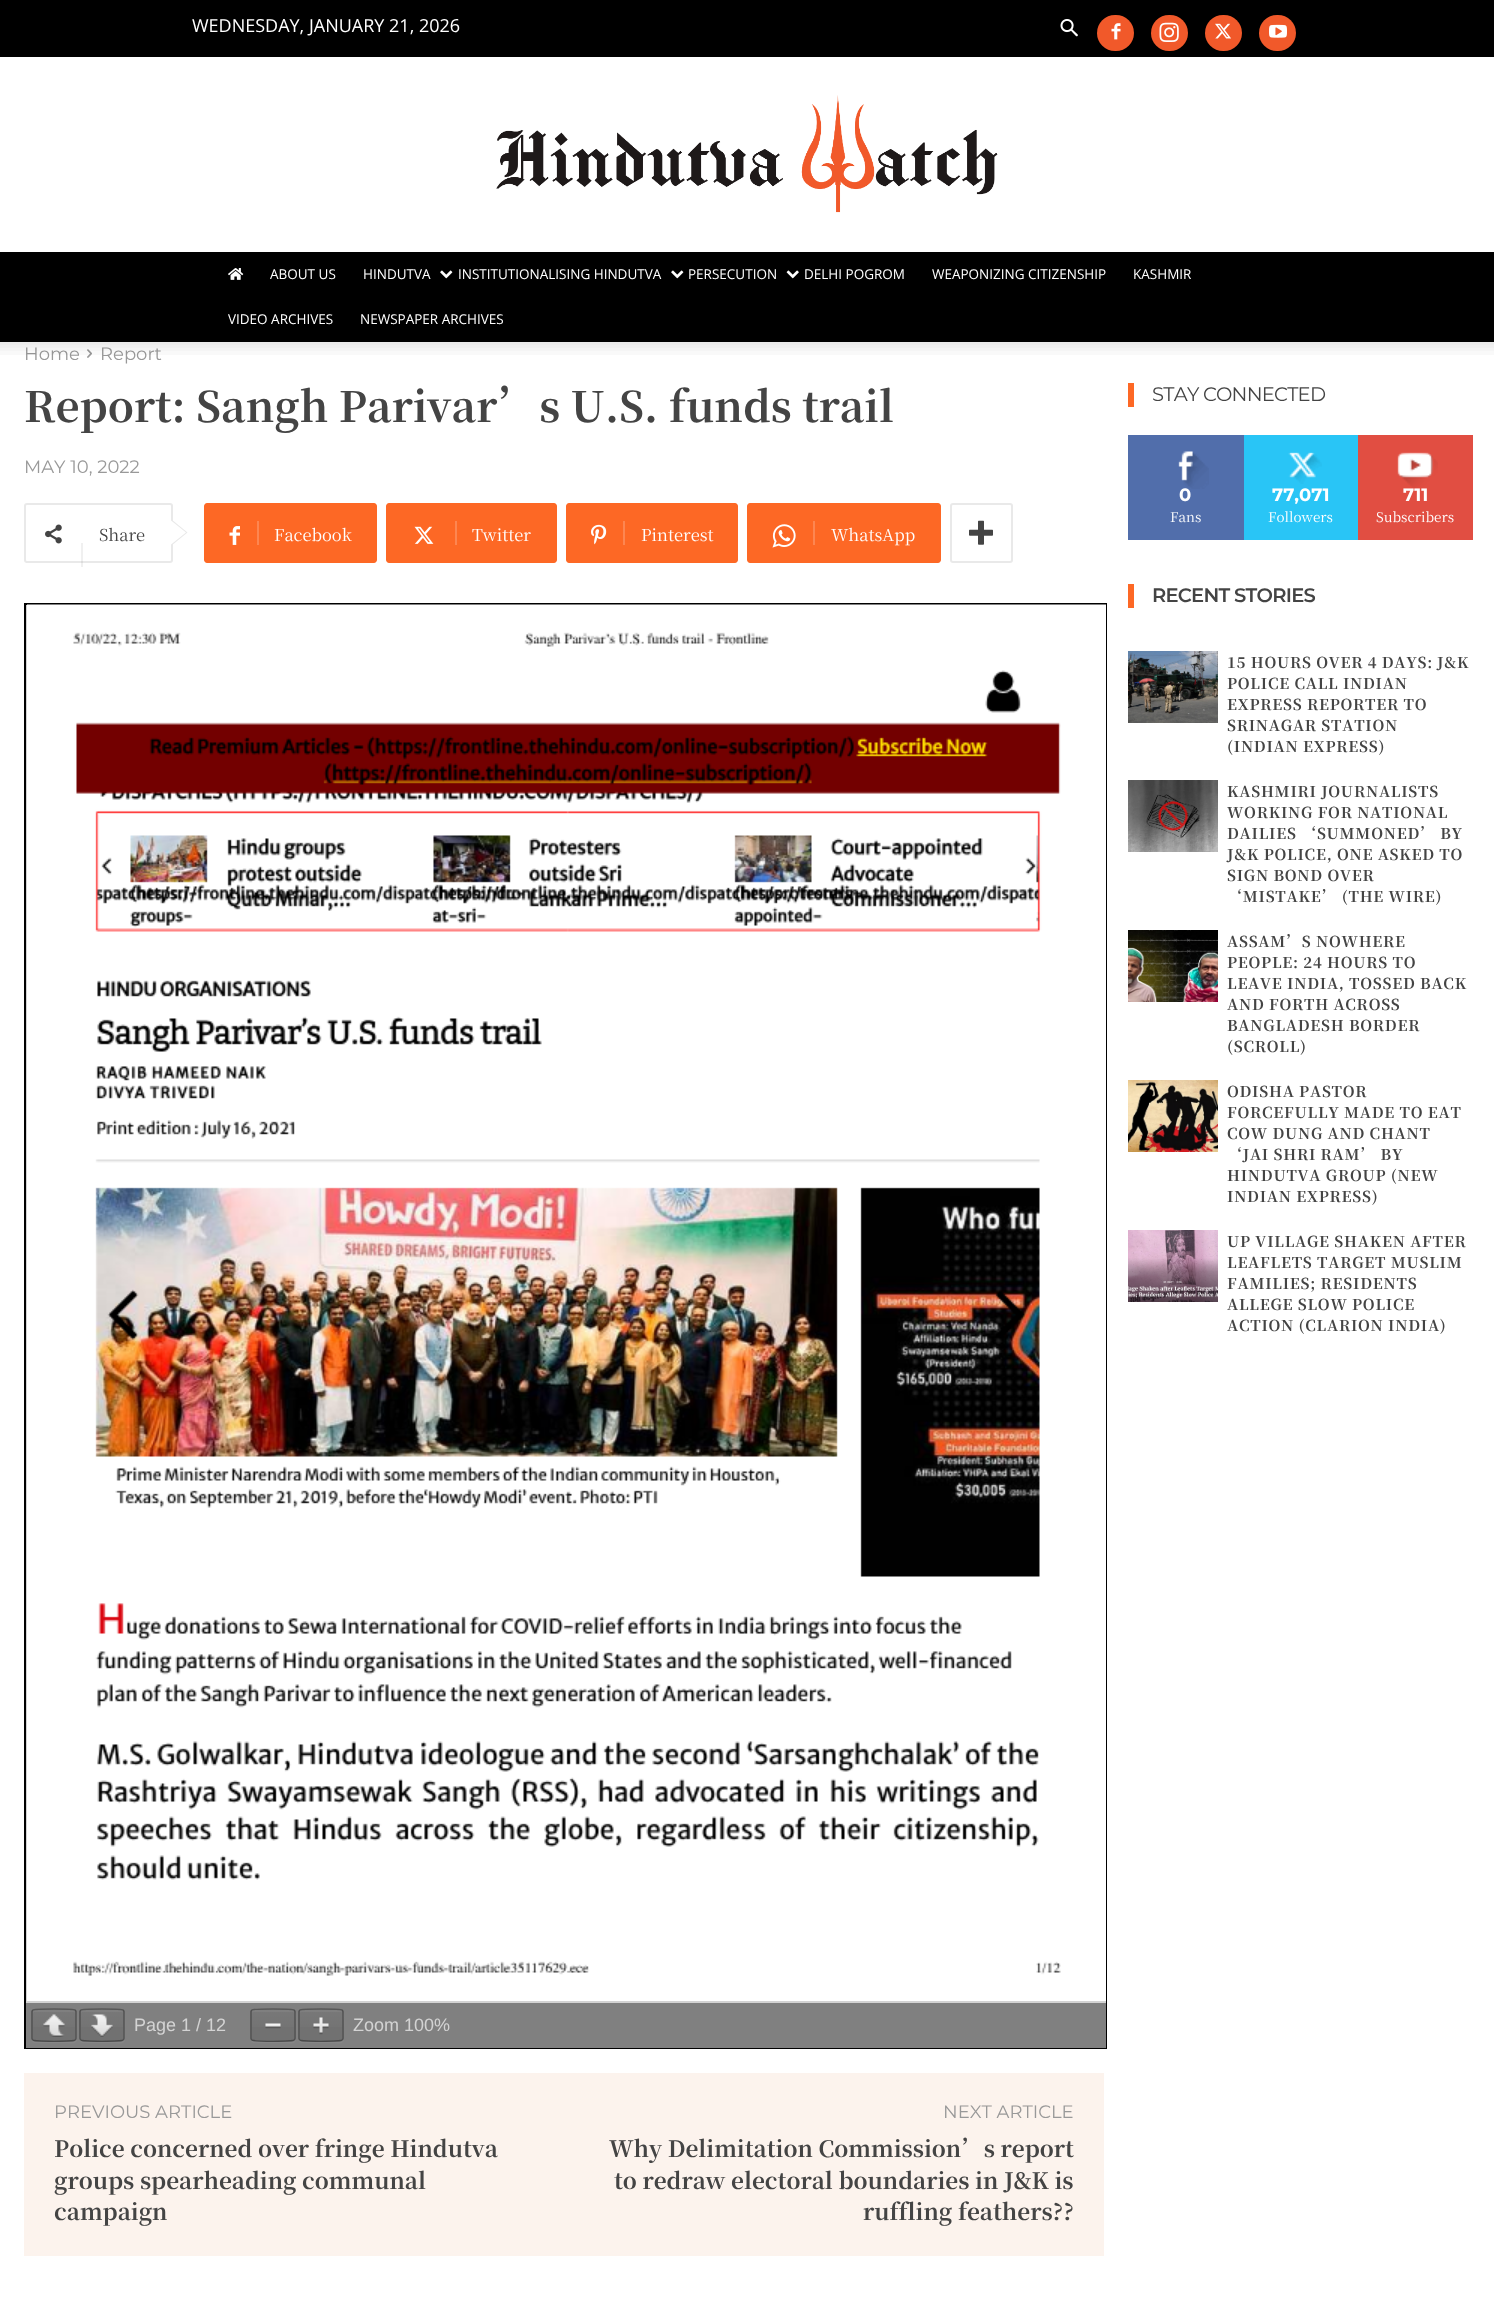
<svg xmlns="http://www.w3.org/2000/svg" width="1494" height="2313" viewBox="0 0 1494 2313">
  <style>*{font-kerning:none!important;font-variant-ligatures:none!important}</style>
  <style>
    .t1 { font: 18px Open Sans; fill: #fff; }
    .t2 { font: 13.5px Open Sans; fill: #fff; }
    .t3 { font: 18px Montserrat; fill: #999; }
    .t4 { font: bold 42px Noto Serif TC; fill: #444; }
    .t5 { font: 16.5px Noto Serif TC; fill: #444; }
    .t6 { font: 16.5px Noto Serif TC; fill: #fff; }
    .t7 { font: 18px Liberation Sans; fill: #d3d3d3; }
    .t8 { font: bold 22.5px Noto Serif TC; fill: #444; }
    .t9 { font: 19.5px Montserrat; letter-spacing: -0.75px; fill: #444; }
    .t10 { font: bold 18px Montserrat; fill: #fff; }
    .t11 { font: 13.5px Noto Serif TC; fill: #fff; }
    .t12 { font: 600 19.5px Montserrat; letter-spacing: -0.75px; fill: #444; }
    .t13 { font: bold 15px Noto Serif TC; letter-spacing: 0.75px; fill: #444; }
  </style>
  <defs>
    <linearGradient id="g1" gradientUnits="userSpaceOnUse" x1="54" y1="2010" x2="54" y2="2040"><stop offset="0" stop-color="#fff" stop-opacity="0.05"/><stop offset="1" stop-color="#fff" stop-opacity="0"/></linearGradient>
    <linearGradient id="g2" gradientUnits="userSpaceOnUse" x1="102" y1="2010" x2="102" y2="2040"><stop offset="0" stop-color="#fff" stop-opacity="0.05"/><stop offset="1" stop-color="#fff" stop-opacity="0"/></linearGradient>
    <linearGradient id="g3" gradientUnits="userSpaceOnUse" x1="273" y1="2010" x2="273" y2="2040"><stop offset="0" stop-color="#fff" stop-opacity="0.05"/><stop offset="1" stop-color="#fff" stop-opacity="0"/></linearGradient>
    <linearGradient id="g4" gradientUnits="userSpaceOnUse" x1="321" y1="2010" x2="321" y2="2040"><stop offset="0" stop-color="#fff" stop-opacity="0.05"/><stop offset="1" stop-color="#fff" stop-opacity="0"/></linearGradient>
  </defs>
  <rect width="100%" height="100%" fill="#fff"/>
  <rect x="0" y="0" width="1494" height="57" fill="#000"/>
  <text x="192" y="32" class="t1">WEDNESDAY, JANUARY 21, 2026</text>
  <image x="1060" y="19" width="18" height="18" href="images/1.png"/>
  <rect x="1097" y="15" width="37" height="36" rx="18" fill="#f1592a"/>
  <image x="1111" y="23" width="10" height="17" href="images/2.png"/>
  <rect x="1151" y="15" width="37" height="36" rx="18" fill="#f1592a"/>
  <image x="1159" y="22" width="20" height="20" href="images/3.png"/>
  <rect x="1205" y="15" width="37" height="36" rx="18" fill="#f1592a"/>
  <image x="1215" y="23" width="16" height="16" href="images/4.png"/>
  <rect x="1259" y="15" width="37" height="36" rx="18" fill="#f1592a"/>
  <image x="1269" y="24" width="18" height="14" href="images/5.png"/>
  <image x="496" y="95" width="502" height="118" href="images/6.png"/>
  <rect x="0" y="252" width="1494" height="90" fill="#000"/>
  <image x="228" y="268" width="16" height="12" href="images/7.png"/>
  <text x="270" y="279" class="t2">ABOUT US</text>
  <text x="363" y="279" class="t2">HINDUTVA</text>
  <image x="440" y="270" width="13" height="9" href="images/8.png"/>
  <text x="458" y="279" class="t2">INSTITUTIONALISING HINDUTVA</text>
  <image x="671" y="270" width="13" height="9" href="images/8.png"/>
  <text x="688" y="279" class="t2">PERSECUTION</text>
  <image x="786" y="270" width="13" height="9" href="images/9.png"/>
  <text x="804" y="279" class="t2">DELHI POGROM</text>
  <text x="932" y="279" class="t2">WEAPONIZING CITIZENSHIP</text>
  <text x="1133" y="279" class="t2">KASHMIR</text>
  <text x="228" y="324" class="t2">VIDEO ARCHIVES</text>
  <text x="360" y="324" class="t2">NEWSPAPER ARCHIVES</text>
  <text x="24" y="360" class="t3">Home</text>
  <image x="87" y="349" width="5" height="9" href="images/11.png"/>
  <text x="100" y="360" class="t3">Report</text>
  <image x="0" y="342" width="1494" height="13" href="images/10.png"/>
  <text x="24" y="422" class="t4">Report: Sangh Parivar’s U.S.</text>
  <text x="669" y="422" class="t4">funds trail</text>
  <text x="24" y="473" class="t3">MAY 10, 2022</text>
  <rect x="25" y="504" width="147" height="58" rx="2" fill="none" stroke="#e9e9e9" stroke-width="2"/>
  <path d="M171 546V519L187.5 532.5Z" fill="#e9e9e9"/>
  <image x="45" y="524" width="17" height="20" href="images/12.png"/>
  <text x="99" y="541" class="t5">Share</text>
  <rect x="81" y="543" width="2" height="24" fill="#44444414"/>
  <path d="M171 544.5V520.5L186 532.5Z" fill="#fff"/>
  <path d="M257 503H374C375.5 503 377 504.5 377 506V560C377 561.5 375.5 563 374 563H257Z" fill="#fd6825"/>
  <path d="M207 503H266V563H207C205.5 563 204 561.5 204 560V506C204 504.5 205.5 503 207 503Z" fill="#fd6825"/>
  <image x="229" y="526" width="11" height="19" href="images/13.png"/>
  <rect x="257" y="521" width="2" height="24" fill="#fd8651"/>
  <text x="274" y="541" class="t6">Facebook</text>
  <path d="M455 503H554C555.5 503 557 504.5 557 506V560C557 561.5 555.5 563 554 563H455Z" fill="#fd6825"/>
  <path d="M389 503H464V563H389C387.5 563 386 561.5 386 560V506C386 504.5 387.5 503 389 503Z" fill="#fd6825"/>
  <image x="414" y="526" width="20" height="18" href="images/14.png"/>
  <rect x="455" y="521" width="2" height="24" fill="#fd8651"/>
  <text x="472" y="541" class="t6">Twitter</text>
  <path d="M623 503H735C736.5 503 738 504.5 738 506V560C738 561.5 736.5 563 735 563H623Z" fill="#fd6825"/>
  <path d="M569 503H632V563H569C567.5 563 566 561.5 566 560V506C566 504.5 567.5 503 569 503Z" fill="#fd6825"/>
  <image x="591" y="524" width="16" height="21" href="images/15.png"/>
  <rect x="623" y="521" width="2" height="24" fill="#fd8651"/>
  <text x="641" y="541" class="t6">Pinterest</text>
  <path d="M813 503H938C939.5 503 941 504.5 941 506V560C941 561.5 939.5 563 938 563H813Z" fill="#fd6825"/>
  <path d="M750 503H822V563H750C748.5 563 747 561.5 747 560V506C747 504.5 748.5 503 750 503Z" fill="#fd6825"/>
  <image x="772" y="524" width="24" height="24" href="images/16.png"/>
  <rect x="813" y="521" width="2" height="24" fill="#fd8651"/>
  <text x="831" y="541" class="t6">WhatsApp</text>
  <rect x="951" y="504" width="61" height="58" rx="2" fill="none" stroke="#e9e9e9" stroke-width="2"/>
  <image x="969" y="520" width="24" height="25" href="images/17.png"/>
  <rect x="26" y="605" width="1" height="1398" fill="#d3d3d3"/>
  <rect x="25" y="604" width="1081" height="1444" fill="none" stroke="#000" stroke-width="2"/>
  <rect x="27" y="2001" width="1079" height="2" fill="#d3d3d3"/>
  <rect x="1105" y="1976" width="1" height="25" fill="#fff"/>
  <image x="27" y="604" width="1079" height="1372" href="images/18.png"/>
  <rect x="26" y="2003" width="1080" height="45" fill="#808080"/>
  <path d="M32 2040C32 2042 33 2043 35 2043H61C78 2043 77 2046 77 2031C77 2028 78 2013 76 2011V2034C76 2043 76 2042 67 2042H41C39 2042 34 2043 32 2040Z" fill="#868686"/>
  <rect x="33" y="2010" width="42" height="30" rx="1.5" fill="#717171"/>
  <rect x="33" y="2010" width="42" height="17" fill="url(#g1)"/>
  <path d="M34 2012H74L75 2013C75 2008 72 2010 67 2010H41C36 2010 33 2008 33 2013Z" fill="#7f7f7f"/>
  <path d="M33 2010C34 2008.5 74 2008.5 75 2010" fill="none" stroke="#575757" stroke-width="1.5"/>
  <path d="M75 2010C75.5 2010.5 76 2011 76 2011.5V2038.5C76 2039 75.5 2039.5 75 2040" fill="none" stroke="#00000061" stroke-width="1.5"/>
  <path d="M75 2040C74 2041.5 34 2041.5 33 2040" fill="none" stroke="#4a4a4a" stroke-width="1.5"/>
  <path d="M33 2040C32.5 2039.5 32 2039 32 2038.5V2011.5C32 2011 32.5 2010.5 33 2010" fill="none" stroke="#4f4f4f" stroke-width="1.5"/>
  <image x="43" y="2014" width="22" height="23" href="images/19.png"/>
  <path d="M80 2040C80 2042 81 2043 83 2043H109C126 2043 125 2046 125 2031C125 2028 126 2013 124 2011V2034C124 2043 124 2042 115 2042H89C87 2042 82 2043 80 2040Z" fill="#868686"/>
  <rect x="81" y="2010" width="42" height="30" rx="1.5" fill="#717171"/>
  <rect x="81" y="2010" width="42" height="17" fill="url(#g2)"/>
  <path d="M82 2012H122L123 2013C123 2008 120 2010 115 2010H89C84 2010 81 2008 81 2013Z" fill="#7f7f7f"/>
  <path d="M81 2010C82 2008.5 122 2008.5 123 2010" fill="none" stroke="#575757" stroke-width="1.5"/>
  <path d="M123 2010C123.5 2010.5 124 2011 124 2011.5V2038.5C124 2039 123.5 2039.5 123 2040" fill="none" stroke="#00000061" stroke-width="1.5"/>
  <path d="M123 2040C122 2041.5 82 2041.5 81 2040" fill="none" stroke="#4a4a4a" stroke-width="1.5"/>
  <path d="M81 2040C80.5 2039.5 80 2039 80 2038.5V2011.5C80 2011 80.5 2010.5 81 2010" fill="none" stroke="#4f4f4f" stroke-width="1.5"/>
  <image x="91" y="2014" width="22" height="23" href="images/20.png"/>
  <text x="134" y="2031" class="t7">Page 1 / 12</text>
  <path d="M251 2040C251 2042 252 2043 254 2043H280C297 2043 296 2046 296 2031C296 2028 297 2013 295 2011L296 2034C296 2043 295 2042 286 2042H260C258 2042 253 2043 251 2040Z" fill="#868686"/>
  <rect x="252" y="2010" width="42" height="30" rx="1.5" fill="#717171"/>
  <rect x="252" y="2010" width="42" height="17" fill="url(#g3)"/>
  <path d="M254 2012H292C293 2012 294 2012 294 2013C294 2008 291 2010 286 2010H260C255 2010 252 2008 252 2013C252 2012 253 2012 254 2012Z" fill="#7f7f7f"/>
  <path d="M252 2010C253 2008.5 293 2008.5 294 2010" fill="none" stroke="#575757" stroke-width="1.5"/>
  <path d="M294 2010C294.5 2010.5 295 2011 295 2011.5V2038.5C295 2039 294.5 2039.5 294 2040" fill="none" stroke="#00000061" stroke-width="1.5"/>
  <path d="M294 2040C293 2041.5 253 2041.5 252 2040" fill="none" stroke="#4a4a4a" stroke-width="1.5"/>
  <path d="M252 2040C251.5 2039.5 251 2039 251 2038.5V2011.5C251 2011 251.5 2010.5 252 2010" fill="none" stroke="#4f4f4f" stroke-width="1.5"/>
  <image x="265" y="2023" width="16" height="6" href="images/21.png"/>
  <path d="M299 2040C299 2042 300 2043 302 2043H328C345 2043 344 2046 344 2031C344 2028 345 2013 343 2011L344 2034C344 2043 343 2042 334 2042H308C306 2042 301 2043 299 2040Z" fill="#868686"/>
  <rect x="300" y="2010" width="42" height="30" rx="1.5" fill="#717171"/>
  <rect x="300" y="2010" width="42" height="17" fill="url(#g4)"/>
  <path d="M302 2012H340C341 2012 342 2012 342 2013C342 2008 339 2010 334 2010H308C303 2010 300 2008 300 2013C300 2012 301 2012 302 2012Z" fill="#7f7f7f"/>
  <path d="M300 2010C301 2008.5 341 2008.5 342 2010" fill="none" stroke="#575757" stroke-width="1.5"/>
  <path d="M342 2010C342.5 2010.5 343 2011 343 2011.5V2038.5C343 2039 342.5 2039.5 342 2040" fill="none" stroke="#00000061" stroke-width="1.5"/>
  <path d="M342 2040C341 2041.5 301 2041.5 300 2040" fill="none" stroke="#4a4a4a" stroke-width="1.5"/>
  <path d="M300 2040C299.5 2039.5 299 2039 299 2038.5V2011.5C299 2011 299.5 2010.5 300 2010" fill="none" stroke="#4f4f4f" stroke-width="1.5"/>
  <image x="313" y="2017" width="16" height="18" href="images/22.png"/>
  <text x="353" y="2031" class="t7">Zoom 100%</text>
  <rect x="24" y="2073" width="1080" height="183" fill="#fcf3ed"/>
  <text x="54" y="2118" class="t3">PREVIOUS ARTICLE</text>
  <text x="54" y="2157" class="t8">Police concerned over fringe Hindutva</text>
  <text x="54" y="2189" class="t8">groups spearheading communal</text>
  <text x="54" y="2220" class="t8">campaign</text>
  <text x="943" y="2118" class="t3">NEXT ARTICLE</text>
  <text x="609" y="2157" class="t8">Why Delimitation Commission’s report</text>
  <text x="614" y="2189" class="t8">to redraw electoral boundaries in J&amp;K is</text>
  <text x="863" y="2220" class="t8">ruffling feathers??</text>
  <rect x="1128" y="383" width="6" height="24" fill="#fd6825"/>
  <text x="1152" y="401" class="t9">STAY CONNECTED</text>
  <rect x="1128" y="435" width="116" height="105" fill="#516eab"/>
  <image x="1178" y="451" width="31" height="38" href="images/23.png"/>
  <text x="1179" y="501" class="t10">0</text>
  <text x="1170" y="522" class="t11">Fans</text>
  <rect x="1244" y="435" width="114" height="105" fill="#29c5f6"/>
  <image x="1288" y="452" width="34" height="32" href="images/24.png"/>
  <text x="1272" y="501" class="t10">77,071</text>
  <text x="1268" y="522" class="t11">Followers</text>
  <rect x="1358" y="435" width="115" height="105" fill="#e14e42"/>
  <image x="1397" y="452" width="41" height="36" href="images/25.png"/>
  <text x="1403" y="501" class="t10">711</text>
  <text x="1376" y="522" class="t11">Subscribers</text>
  <rect x="1128" y="584" width="6" height="24" fill="#fd6825"/>
  <text x="1152" y="602" class="t12">RECENT STORIES</text>
  <image x="1128" y="651" width="90" height="72" href="images/26.png"/>
  <text x="1227" y="668" class="t13">15 HOURS OVER 4 DAYS:</text>
  <text x="1437" y="668" class="t13">J&amp;K</text>
  <text x="1227" y="689" class="t13">POLICE CALL INDIAN</text>
  <text x="1227" y="710" class="t13">EXPRESS REPORTER TO</text>
  <text x="1227" y="731" class="t13">SRINAGAR STATION</text>
  <text x="1227" y="752" class="t13">(INDIAN EXPRESS)</text>
  <image x="1128" y="780" width="90" height="72" href="images/27.png"/>
  <text x="1227" y="797" class="t13">KASHMIRI JOURNALISTS</text>
  <text x="1227" y="818" class="t13">WORKING FOR NATIONAL</text>
  <text x="1227" y="839" class="t13">DAILIES ‘SUMMONED’ BY</text>
  <text x="1227" y="860" class="t13">J&amp;K POLICE, ONE ASKED TO</text>
  <text x="1227" y="881" class="t13">SIGN BOND OVER</text>
  <text x="1227" y="902" class="t13">‘MISTAKE’ (THE WIRE)</text>
  <image x="1128" y="930" width="90" height="72" href="images/28.png"/>
  <text x="1227" y="947" class="t13">ASSAM’S NOWHERE</text>
  <text x="1227" y="968" class="t13">PEOPLE: 24 HOURS TO</text>
  <text x="1227" y="989" class="t13">LEAVE INDIA, TOSSED BACK</text>
  <text x="1227" y="1010" class="t13">AND FORTH ACROSS</text>
  <text x="1227" y="1031" class="t13">BANGLADESH BORDER</text>
  <text x="1227" y="1052" class="t13">(SCROLL)</text>
  <image x="1128" y="1080" width="90" height="72" href="images/29.png"/>
  <text x="1227" y="1097" class="t13">ODISHA PASTOR</text>
  <text x="1227" y="1118" class="t13">FORCEFULLY MADE TO EAT</text>
  <text x="1227" y="1139" class="t13">COW DUNG AND CHANT</text>
  <text x="1227" y="1160" class="t13">‘JAI SHRI RAM’ BY</text>
  <text x="1227" y="1181" class="t13">HINDUTVA GROUP (NEW</text>
  <text x="1227" y="1202" class="t13">INDIAN EXPRESS)</text>
  <image x="1128" y="1230" width="90" height="72" href="images/30.png"/>
  <text x="1227" y="1247" class="t13">UP VILLAGE SHAKEN AFTER</text>
  <text x="1227" y="1268" class="t13">LEAFLETS TARGET MUSLIM</text>
  <text x="1227" y="1289" class="t13">FAMILIES; RESIDENTS</text>
  <text x="1227" y="1310" class="t13">ALLEGE SLOW POLICE</text>
  <text x="1227" y="1331" class="t13">ACTION (CLARION INDIA)</text>
</svg>
